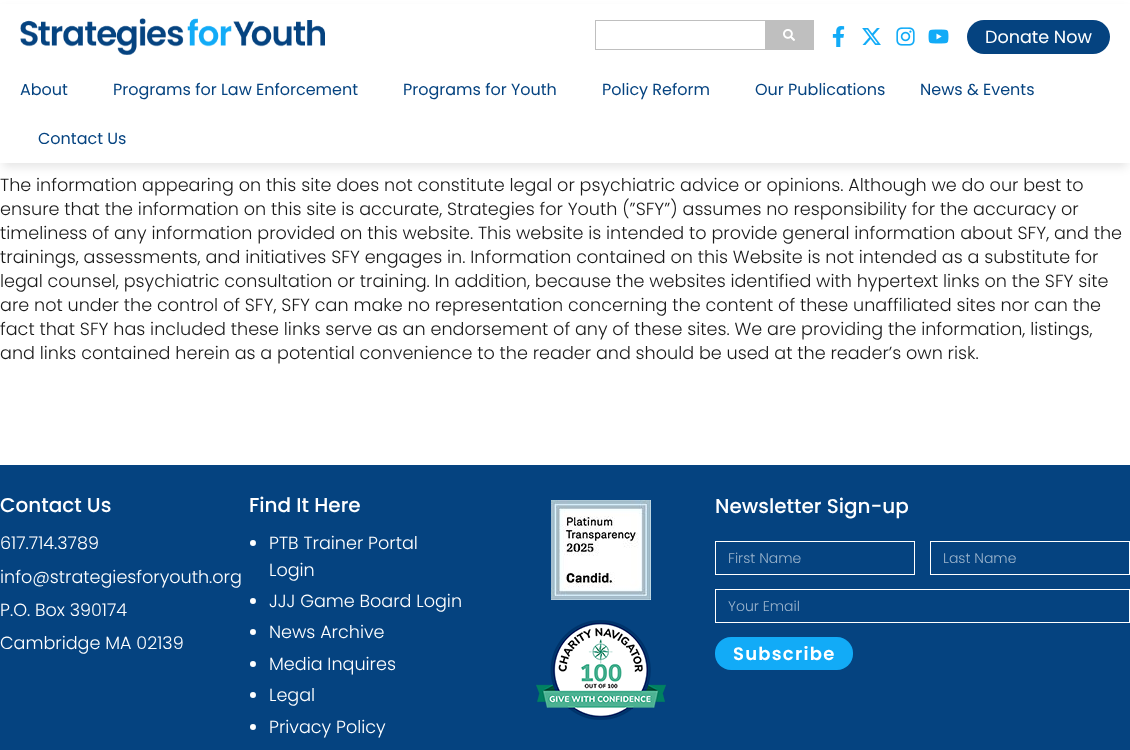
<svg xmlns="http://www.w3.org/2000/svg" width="1130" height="750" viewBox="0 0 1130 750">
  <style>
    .t1 { font: 17.6px Poppins; fill: #fff; }
    .t2 { font: 16px Poppins; fill: #054380; }
    .t3 { font: 300 17.6px Poppins; fill: #1a1a1a; }
    .t4 { font: 500 20px Poppins; fill: #fff; }
    .t5 { font: 300 17.6px Poppins; fill: #fff; }
    .t6 { font: 300 14px Poppins; fill: #9bb4cc; }
    .t7 { font: 600 18px Poppins; letter-spacing: 1.25px; fill: #fff; }
  </style>
  <rect width="100%" height="100%" fill="#fff"/>
  <rect x="3" y="10" width="1124" height="157" fill="#0000001a" filter="blur(5px)"/>
  <rect x="0" y="4" width="1130" height="159" fill="#fff"/>
  <image x="20" y="18" width="305" height="37" href="images/1.png"/>
  <rect x="595.5" y="20.5" width="218" height="29" fill="none" stroke="#bfbfbf"/>
  <rect x="765" y="21" width="48" height="28" fill="#bfbfbf"/>
  <image x="783" y="29" width="12" height="12" href="images/2.png"/>
  <image x="832" y="26" width="13" height="21" href="images/3.png"/>
  <image x="862" y="28" width="19" height="17" href="images/4.png"/>
  <image x="896" y="27" width="19" height="19" href="images/5.png"/>
  <image x="928" y="29" width="21" height="15" href="images/6.png"/>
  <rect x="967" y="20" width="143" height="34" rx="17" fill="#054380"/>
  <text x="985" y="43" class="t1">Donate Now</text>
  <text x="20" y="95" class="t2">About</text>
  <text x="113" y="95" class="t2">Programs for Law Enforcement</text>
  <text x="403" y="95" class="t2">Programs for Youth</text>
  <text x="602" y="95" class="t2">Policy Reform</text>
  <text x="755" y="95" class="t2">Our Publications</text>
  <text x="920" y="95" class="t2">News &amp; Events</text>
  <text x="38" y="144" class="t2">Contact Us</text>
  <text x="0" y="191" class="t3">The information appearing on this site does not constitute legal or psychiatric advice or opinions. Although we do our best to</text>
  <text x="0" y="215" class="t3">ensure that the information on this site is accurate, Strategies for Youth (”SFY”) assumes no responsibility for the accuracy or</text>
  <text x="0" y="239" class="t3">timeliness of any information provided on this website. This website is intended to provide general information about SFY, and the</text>
  <text x="0" y="263" class="t3">trainings, assessments, and initiatives SFY engages in. Information contained on this Website is not intended as a substitute for</text>
  <text x="0" y="287" class="t3">legal counsel, psychiatric consultation or training. In addition, because the websites identified with hypertext links on the SFY site</text>
  <text x="0" y="311" class="t3">are not under the control of SFY, SFY can make no representation concerning the content of these unaffiliated sites nor can the</text>
  <text x="0" y="335" class="t3">fact that SFY has included these links serve as an endorsement of any of these sites. We are providing the information, listings,</text>
  <text x="0" y="359" class="t3">and links contained herein as a potential convenience to the reader and should be used at the reader’s own risk.</text>
  <rect x="0" y="465" width="1130" height="285" fill="#054380"/>
  <text x="0" y="512" class="t4">Contact Us</text>
  <text x="0" y="549" class="t5">617.714.3789</text>
  <text x="0" y="583" class="t5">info@strategiesforyouth.org</text>
  <text x="0" y="616" class="t5">P.O. Box 390174</text>
  <text x="0" y="649" class="t5">Cambridge MA 02139</text>
  <text x="249" y="512" class="t4">Find It Here</text>
  <circle cx="253" cy="543" r="3" fill="#fff"/>
  <text x="269" y="549" class="t5">PTB Trainer Portal</text>
  <text x="269" y="576" class="t5">Login</text>
  <circle cx="253" cy="601" r="3" fill="#fff"/>
  <text x="269" y="607" class="t5">JJJ Game Board Login</text>
  <circle cx="253" cy="632" r="3" fill="#fff"/>
  <text x="269" y="638" class="t5">News Archive</text>
  <circle cx="253" cy="664" r="3" fill="#fff"/>
  <text x="269" y="670" class="t5">Media Inquires</text>
  <circle cx="253" cy="695" r="3" fill="#fff"/>
  <text x="269" y="701" class="t5">Legal</text>
  <circle cx="253" cy="727" r="3" fill="#fff"/>
  <text x="269" y="733" class="t5">Privacy Policy</text>
  <image x="551" y="500" width="100" height="100" href="images/7.png"/>
  <image x="536" y="620" width="130" height="100" href="images/8.png"/>
  <text x="715" y="513" class="t4">Newsletter Sign-up</text>
  <rect x="715.5" y="541.5" width="199" height="33" fill="none" stroke="#fff"/>
  <text x="728" y="563" class="t6">First Name</text>
  <rect x="930.5" y="541.5" width="199" height="33" fill="none" stroke="#fff"/>
  <text x="943" y="563" class="t6">Last Name</text>
  <rect x="715.5" y="589.5" width="414" height="33" fill="none" stroke="#fff"/>
  <text x="728" y="611" class="t6">Your Email</text>
  <rect x="715" y="637" width="138" height="33" rx="16" fill="#12abf7"/>
  <text x="733" y="660" class="t7">Subscribe</text>
</svg>
